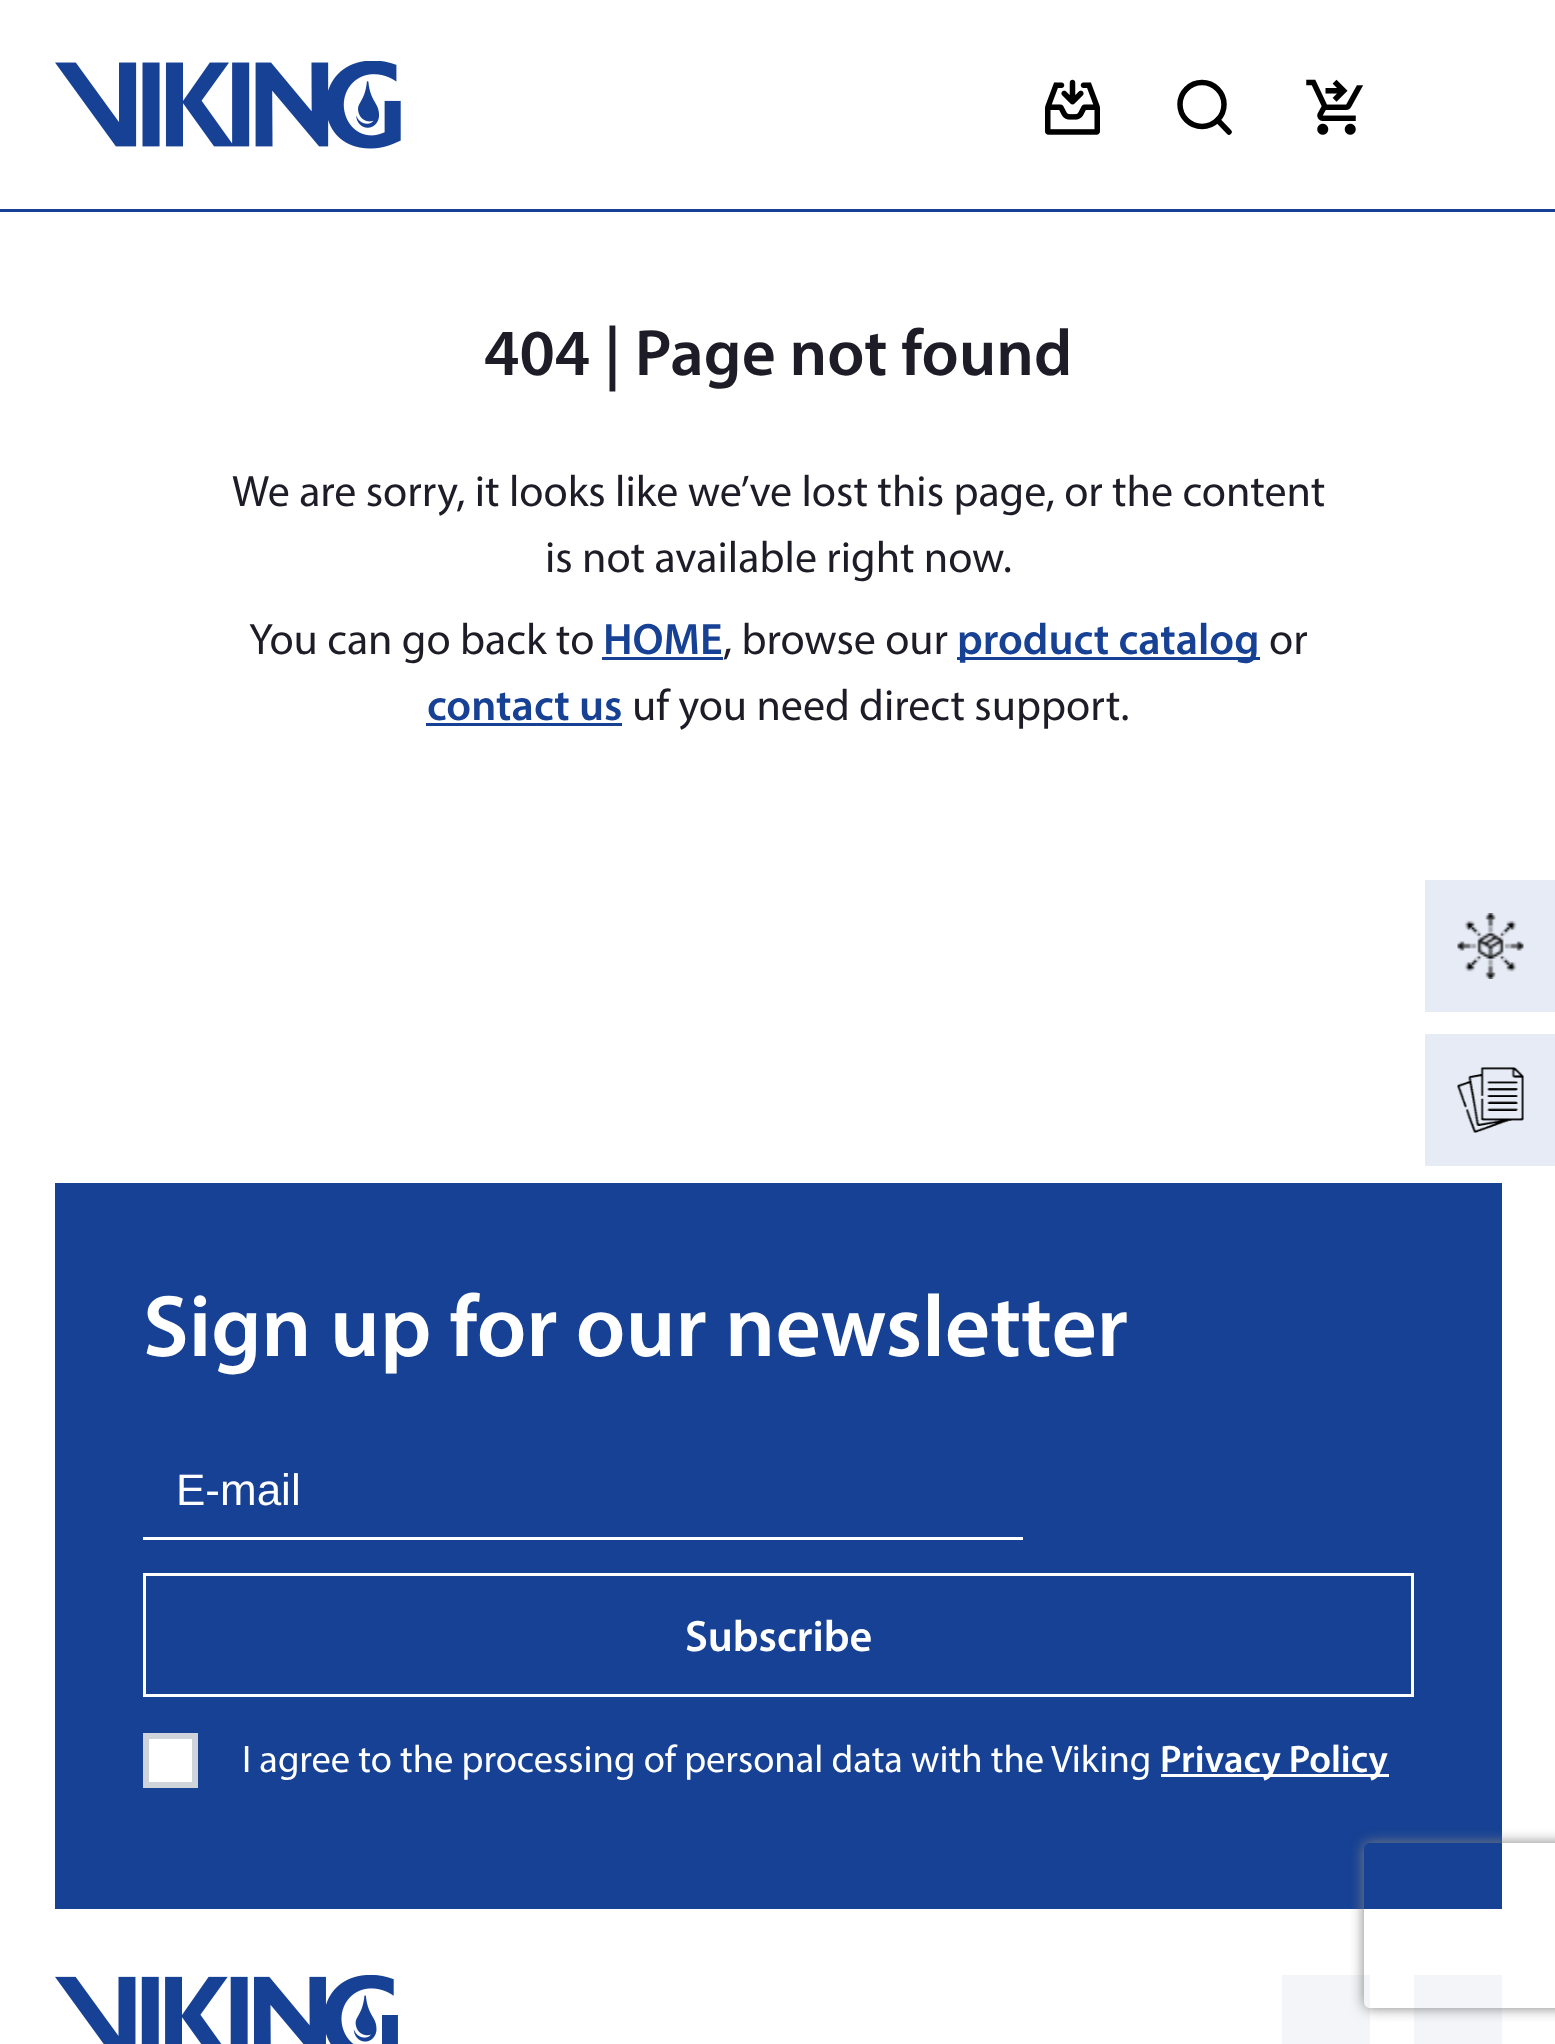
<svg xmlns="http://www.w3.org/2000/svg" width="1555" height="2044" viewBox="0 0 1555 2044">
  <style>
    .t1 { font: 600 66px Myriad; fill: #1e1d27; }
    .t2 { font: 44px Myriad; fill: #1e1d27; }
    .t3 { font: 600 44px Myriad; fill: #164194; }
    .t4 { font: 600 88px Myriad; fill: #fff; }
    .t5 { font: 44px Liberation Sans; fill: #fff; }
    .t6 { font: 600 44px Myriad; fill: #fff; }
    .t7 { font: 38.5px Myriad; fill: #fff; }
    .t8 { font: 600 38.5px Myriad; fill: #fff; }
  </style>
  <defs>
    <clipPath id="clip1"><path d="M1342 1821H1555V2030H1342ZM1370 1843H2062C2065.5 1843 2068 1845.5 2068 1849V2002C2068 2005.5 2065.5 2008 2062 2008H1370C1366.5 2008 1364 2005.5 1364 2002V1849C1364 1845.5 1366.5 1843 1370 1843Z" clip-rule="evenodd"/></clipPath>
  </defs>
  <rect width="100%" height="100%" fill="#fff"/>
  <rect x="0" y="209" width="1555" height="3" fill="#164194"/>
  <image x="55" y="61" width="346" height="88" href="images/1.png"/>
  <image x="1045" y="79" width="55" height="56" href="images/2.png"/>
  <circle cx="1202" cy="104.5" r="22" fill="none" stroke="#000" stroke-width="5.5"/>
  <path d="M1229 132L1217.5 120" fill="none" stroke="#000" stroke-width="5.5" stroke-linecap="round" stroke-linejoin="round"/>
  <image x="1306" y="79" width="58" height="56" href="images/3.png"/>
  <rect x="1425" y="880" width="130" height="132" fill="#e6ebf5"/>
  <image x="1457" y="913" width="67" height="66" href="images/4.png"/>
  <rect x="1425" y="1034" width="130" height="132" fill="#e6ebf5"/>
  <image x="1457" y="1067" width="67" height="66" href="images/5.png"/>
  <text x="484" y="375" class="t1">404 | Page not found</text>
  <text x="232" y="506" class="t2">We are sorry, it looks like we’ve lost this page, or the content</text>
  <text x="545" y="572" class="t2">is not available right now.</text>
  <text x="249" y="654" class="t2">You can go back to</text>
  <text x="603" y="654" class="t3">HOME</text>
  <rect x="602" y="657" width="121" height="3" fill="#164194"/>
  <text x="723" y="654" class="t2">, browse our</text>
  <rect x="957" y="657" width="303" height="3" fill="#164194"/>
  <text x="957" y="654" class="t3">product catalog</text>
  <text x="1269" y="654" class="t2">or</text>
  <text x="427" y="720" class="t3">contact us</text>
  <rect x="426" y="723" width="196" height="3" fill="#164194"/>
  <text x="632" y="720" class="t2">uf you need direct support.</text>
  <rect x="55" y="1183" width="1447" height="726" fill="#164194"/>
  <text x="143" y="1356" class="t4">Sign up for our newsletter</text>
  <rect x="143" y="1537" width="880" height="3" fill="#fff"/>
  <text x="176" y="1505" class="t5">E-mail</text>
  <rect x="144.5" y="1574.5" width="1268" height="121" fill="none" stroke="#fff" stroke-width="3"/>
  <text x="685" y="1651" class="t6">Subscribe</text>
  <rect x="146" y="1736" width="49" height="49" fill="#fff" stroke="#ced4da" stroke-width="6"/>
  <text x="242" y="1772" class="t7">I agree to the processing of personal data with the Viking</text>
  <rect x="1161" y="1774" width="228" height="3" fill="#fff"/>
  <text x="1160" y="1772" class="t8">Privacy Policy</text>
  <image x="55" y="1975" width="343" height="69" href="images/6.png"/>
  <rect x="1282" y="1975" width="88" height="69" fill="#f3f5f8"/>
  <rect x="1414" y="1975" width="88" height="69" fill="#f3f5f8"/>
  <g clip-path="url(#clip1)">
    <rect x="1364" y="1843" width="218" height="165" rx="6" fill="#808080" filter="blur(7px)"/>
  </g>
</svg>
